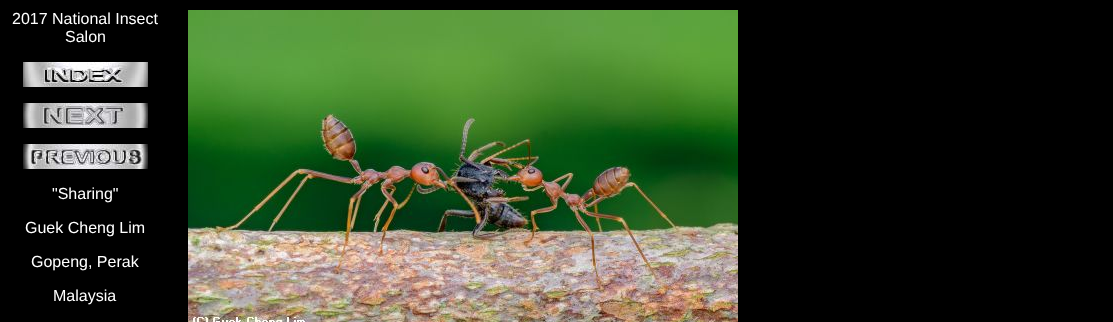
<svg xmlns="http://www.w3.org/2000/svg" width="1113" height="322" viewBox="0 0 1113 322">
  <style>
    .t1 { font: 16px Liberation Sans; fill: #fff; }
  </style>
  <rect width="100%" height="100%" fill="#000"/>
  <text x="12" y="24" class="t1">2017 National Insect</text>
  <text x="65" y="42" class="t1">Salon</text>
  <image x="23" y="62" width="125" height="25" href="images/1.png"/>
  <image x="23" y="103" width="125" height="25" href="images/2.png"/>
  <image x="23" y="144" width="125" height="25" href="images/3.png"/>
  <text x="52" y="199" class="t1">"Sharing"</text>
  <text x="25" y="233" class="t1">Guek Cheng Lim</text>
  <text x="31" y="267" class="t1">Gopeng, Perak</text>
  <text x="53" y="301" class="t1">Malaysia</text>
  <image x="188" y="10" width="550" height="312" href="images/4.png"/>
</svg>
